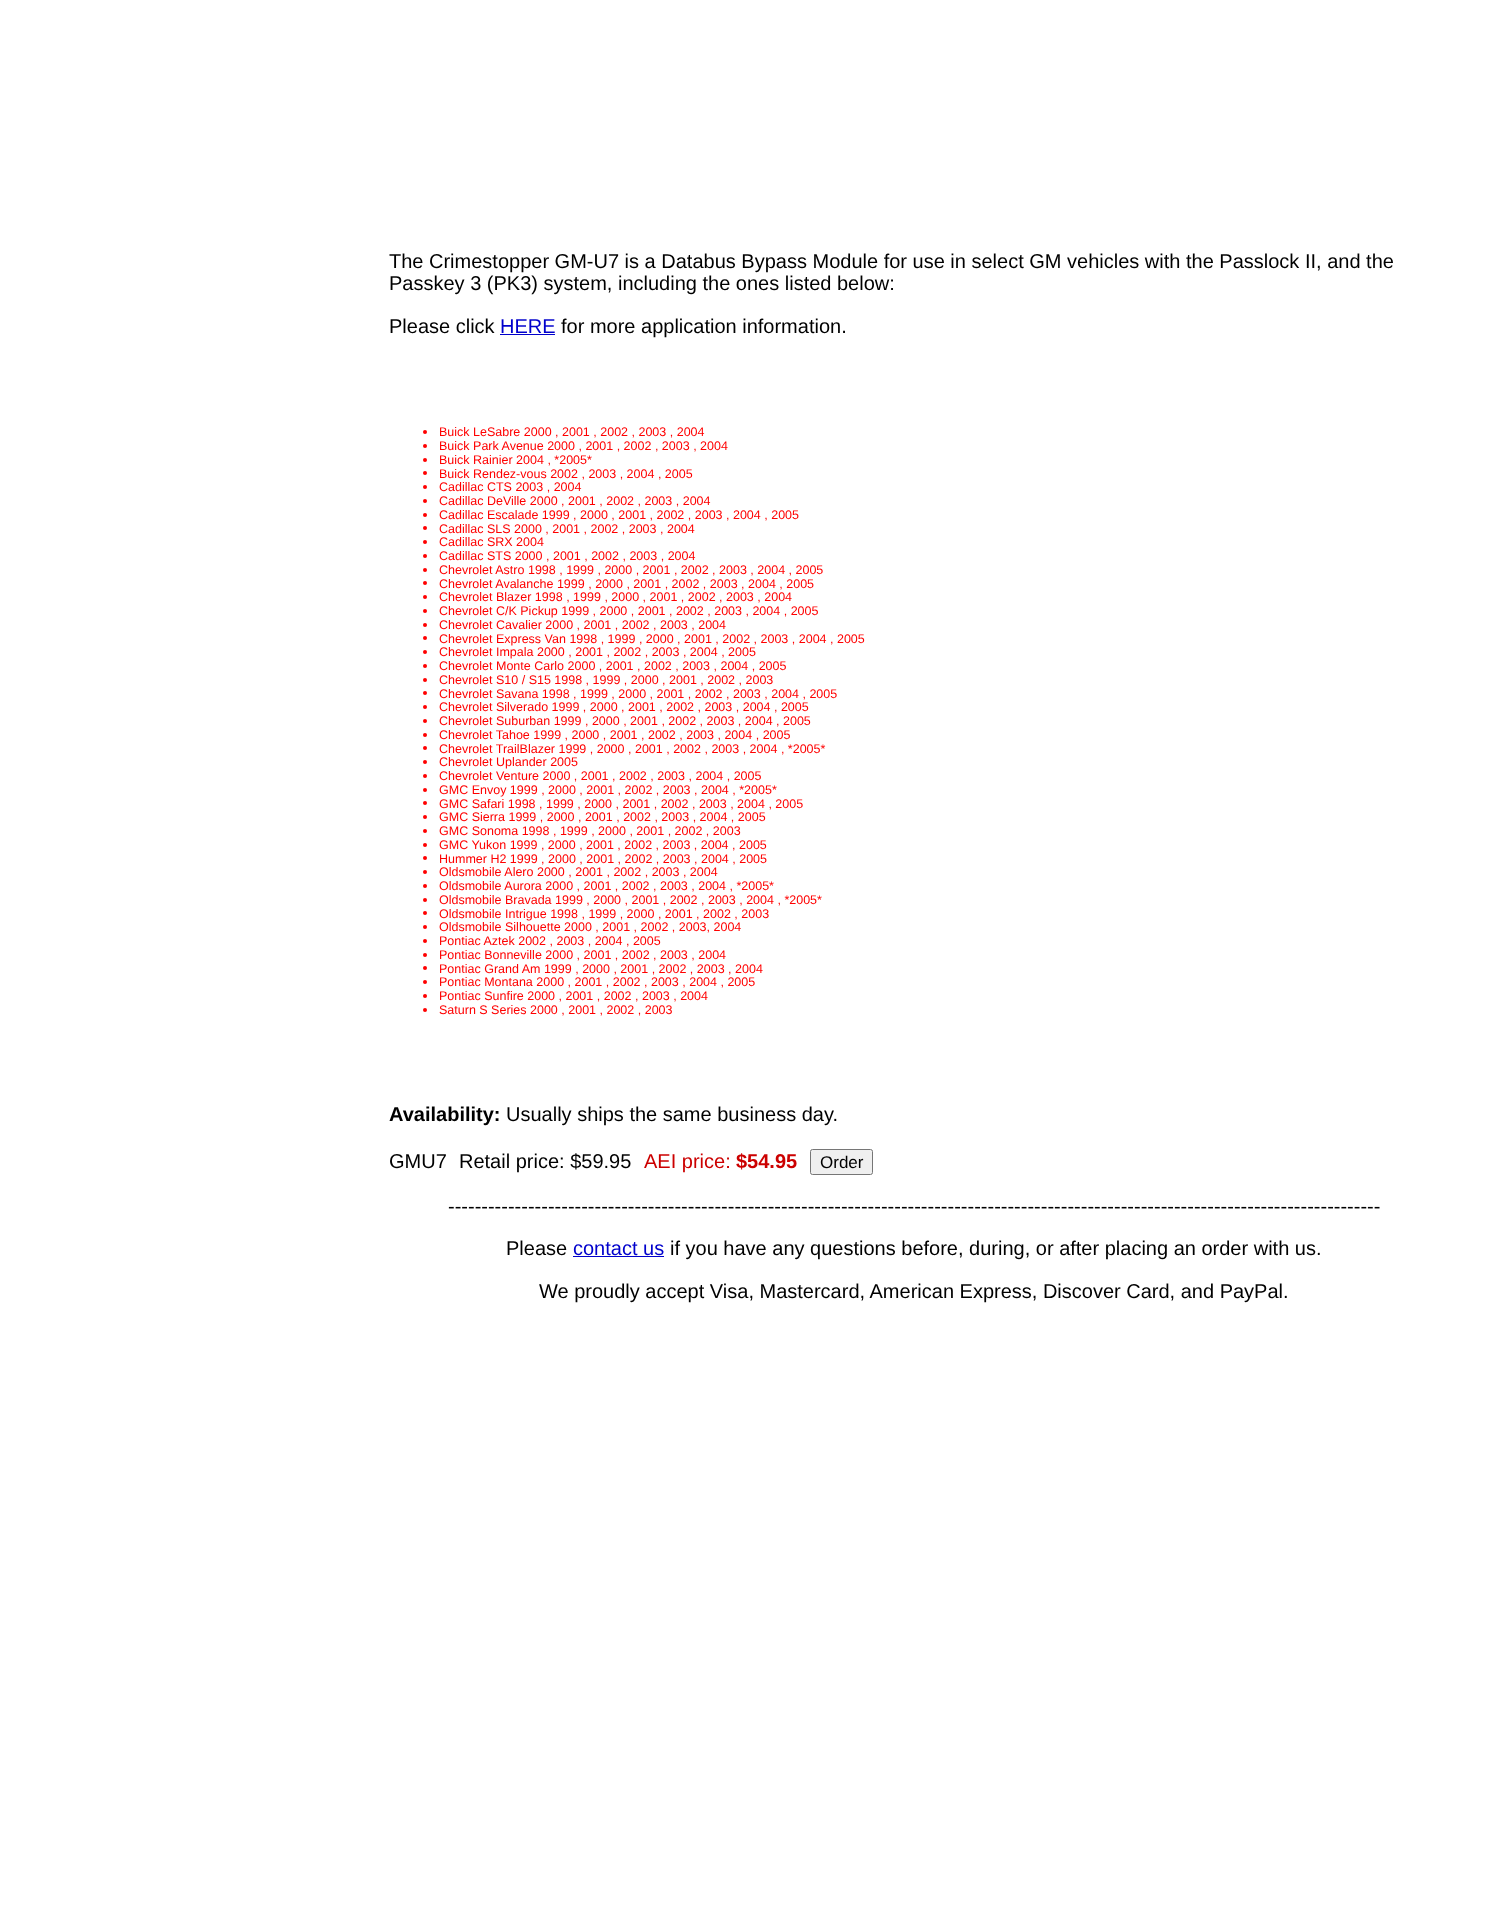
<svg xmlns="http://www.w3.org/2000/svg" width="1493" height="1912" viewBox="0 0 1493 1912">
  <style>
    .t1 { font: 20px Liberation Sans; fill: #000; }
    .t2 { font: 20px Liberation Sans; fill: #00c; }
    .t3 { font: 12.5px Liberation Sans; fill: #f00; }
    .t4 { font: bold 20px Liberation Sans; fill: #000; }
    .t5 { font: 20px Liberation Sans; fill: #c00; }
    .t6 { font: bold 20px Liberation Sans; fill: #c00; }
    .t7 { font: 17px Liberation Sans; fill: #000; }
  </style>
  <rect width="100%" height="100%" fill="#fff"/>
  <text x="389" y="268" class="t1">The Crimestopper GM-U7 is a Databus Bypass Module for use in select GM vehicles with the Passlock II, and the</text>
  <text x="389" y="290" class="t1">Passkey 3 (PK3) system, including the ones listed below:</text>
  <text x="389" y="333" class="t1">Please click</text>
  <text x="500" y="333" class="t2">HERE</text>
  <rect x="500" y="334" width="55" height="1" fill="#00c"/>
  <text x="561" y="333" class="t1">for more application information.</text>
  <circle cx="425" cy="432" r="2" fill="#f00"/>
  <text x="439" y="436" class="t3">Buick LeSabre 2000 , 2001 , 2002 , 2003 , 2004</text>
  <circle cx="425" cy="446" r="2" fill="#f00"/>
  <text x="439" y="450" class="t3">Buick Park Avenue 2000 , 2001 , 2002 , 2003 , 2004</text>
  <circle cx="425" cy="460" r="2" fill="#f00"/>
  <text x="439" y="464" class="t3">Buick Rainier 2004 , *2005*</text>
  <circle cx="425" cy="473" r="2" fill="#f00"/>
  <text x="439" y="478" class="t3">Buick Rendez-vous 2002 , 2003 , 2004 , 2005</text>
  <circle cx="425" cy="487" r="2" fill="#f00"/>
  <text x="439" y="491" class="t3">Cadillac CTS 2003 , 2004</text>
  <circle cx="425" cy="501" r="2" fill="#f00"/>
  <text x="439" y="505" class="t3">Cadillac DeVille 2000 , 2001 , 2002 , 2003 , 2004</text>
  <circle cx="425" cy="515" r="2" fill="#f00"/>
  <text x="439" y="519" class="t3">Cadillac Escalade 1999 , 2000 , 2001 , 2002 , 2003 , 2004 , 2005</text>
  <circle cx="425" cy="528" r="2" fill="#f00"/>
  <text x="439" y="533" class="t3">Cadillac SLS 2000 , 2001 , 2002 , 2003 , 2004</text>
  <circle cx="425" cy="542" r="2" fill="#f00"/>
  <text x="439" y="546" class="t3">Cadillac SRX 2004</text>
  <circle cx="425" cy="556" r="2" fill="#f00"/>
  <text x="439" y="560" class="t3">Cadillac STS 2000 , 2001 , 2002 , 2003 , 2004</text>
  <circle cx="425" cy="570" r="2" fill="#f00"/>
  <text x="439" y="574" class="t3">Chevrolet Astro 1998 , 1999 , 2000 , 2001 , 2002 , 2003 , 2004 , 2005</text>
  <circle cx="425" cy="583" r="2" fill="#f00"/>
  <text x="439" y="588" class="t3">Chevrolet Avalanche 1999 , 2000 , 2001 , 2002 , 2003 , 2004 , 2005</text>
  <circle cx="425" cy="597" r="2" fill="#f00"/>
  <text x="439" y="601" class="t3">Chevrolet Blazer 1998 , 1999 , 2000 , 2001 , 2002 , 2003 , 2004</text>
  <circle cx="425" cy="611" r="2" fill="#f00"/>
  <text x="439" y="615" class="t3">Chevrolet C/K Pickup 1999 , 2000 , 2001 , 2002 , 2003 , 2004 , 2005</text>
  <circle cx="425" cy="625" r="2" fill="#f00"/>
  <text x="439" y="629" class="t3">Chevrolet Cavalier 2000 , 2001 , 2002 , 2003 , 2004</text>
  <circle cx="425" cy="638" r="2" fill="#f00"/>
  <text x="439" y="643" class="t3">Chevrolet Express Van 1998 , 1999 , 2000 , 2001 , 2002 , 2003 , 2004 , 2005</text>
  <circle cx="425" cy="652" r="2" fill="#f00"/>
  <text x="439" y="656" class="t3">Chevrolet Impala 2000 , 2001 , 2002 , 2003 , 2004 , 2005</text>
  <circle cx="425" cy="666" r="2" fill="#f00"/>
  <text x="439" y="670" class="t3">Chevrolet Monte Carlo 2000 , 2001 , 2002 , 2003 , 2004 , 2005</text>
  <circle cx="425" cy="680" r="2" fill="#f00"/>
  <text x="439" y="684" class="t3">Chevrolet S10 / S15 1998 , 1999 , 2000 , 2001 , 2002 , 2003</text>
  <circle cx="425" cy="693" r="2" fill="#f00"/>
  <text x="439" y="698" class="t3">Chevrolet Savana 1998 , 1999 , 2000 , 2001 , 2002 , 2003 , 2004 , 2005</text>
  <circle cx="425" cy="707" r="2" fill="#f00"/>
  <text x="439" y="711" class="t3">Chevrolet Silverado 1999 , 2000 , 2001 , 2002 , 2003 , 2004 , 2005</text>
  <circle cx="425" cy="721" r="2" fill="#f00"/>
  <text x="439" y="725" class="t3">Chevrolet Suburban 1999 , 2000 , 2001 , 2002 , 2003 , 2004 , 2005</text>
  <circle cx="425" cy="735" r="2" fill="#f00"/>
  <text x="439" y="739" class="t3">Chevrolet Tahoe 1999 , 2000 , 2001 , 2002 , 2003 , 2004 , 2005</text>
  <circle cx="425" cy="748" r="2" fill="#f00"/>
  <text x="439" y="753" class="t3">Chevrolet TrailBlazer 1999 , 2000 , 2001 , 2002 , 2003 , 2004 , *2005*</text>
  <circle cx="425" cy="762" r="2" fill="#f00"/>
  <text x="439" y="766" class="t3">Chevrolet Uplander 2005</text>
  <circle cx="425" cy="776" r="2" fill="#f00"/>
  <text x="439" y="780" class="t3">Chevrolet Venture 2000 , 2001 , 2002 , 2003 , 2004 , 2005</text>
  <circle cx="425" cy="790" r="2" fill="#f00"/>
  <text x="439" y="794" class="t3">GMC Envoy 1999 , 2000 , 2001 , 2002 , 2003 , 2004 , *2005*</text>
  <circle cx="425" cy="803" r="2" fill="#f00"/>
  <text x="439" y="808" class="t3">GMC Safari 1998 , 1999 , 2000 , 2001 , 2002 , 2003 , 2004 , 2005</text>
  <circle cx="425" cy="817" r="2" fill="#f00"/>
  <text x="439" y="821" class="t3">GMC Sierra 1999 , 2000 , 2001 , 2002 , 2003 , 2004 , 2005</text>
  <circle cx="425" cy="831" r="2" fill="#f00"/>
  <text x="439" y="835" class="t3">GMC Sonoma 1998 , 1999 , 2000 , 2001 , 2002 , 2003</text>
  <circle cx="425" cy="845" r="2" fill="#f00"/>
  <text x="439" y="849" class="t3">GMC Yukon 1999 , 2000 , 2001 , 2002 , 2003 , 2004 , 2005</text>
  <circle cx="425" cy="858" r="2" fill="#f00"/>
  <text x="439" y="863" class="t3">Hummer H2 1999 , 2000 , 2001 , 2002 , 2003 , 2004 , 2005</text>
  <circle cx="425" cy="872" r="2" fill="#f00"/>
  <text x="439" y="876" class="t3">Oldsmobile Alero 2000 , 2001 , 2002 , 2003 , 2004</text>
  <circle cx="425" cy="886" r="2" fill="#f00"/>
  <text x="439" y="890" class="t3">Oldsmobile Aurora 2000 , 2001 , 2002 , 2003 , 2004 , *2005*</text>
  <circle cx="425" cy="900" r="2" fill="#f00"/>
  <text x="439" y="904" class="t3">Oldsmobile Bravada 1999 , 2000 , 2001 , 2002 , 2003 , 2004 , *2005*</text>
  <circle cx="425" cy="913" r="2" fill="#f00"/>
  <text x="439" y="918" class="t3">Oldsmobile Intrigue 1998 , 1999 , 2000 , 2001 , 2002 , 2003</text>
  <circle cx="425" cy="927" r="2" fill="#f00"/>
  <text x="439" y="931" class="t3">Oldsmobile Silhouette 2000 , 2001 , 2002 , 2003, 2004</text>
  <circle cx="425" cy="941" r="2" fill="#f00"/>
  <text x="439" y="945" class="t3">Pontiac Aztek 2002 , 2003 , 2004 , 2005</text>
  <circle cx="425" cy="955" r="2" fill="#f00"/>
  <text x="439" y="959" class="t3">Pontiac Bonneville 2000 , 2001 , 2002 , 2003 , 2004</text>
  <circle cx="425" cy="968" r="2" fill="#f00"/>
  <text x="439" y="973" class="t3">Pontiac Grand Am 1999 , 2000 , 2001 , 2002 , 2003 , 2004</text>
  <circle cx="425" cy="982" r="2" fill="#f00"/>
  <text x="439" y="986" class="t3">Pontiac Montana 2000 , 2001 , 2002 , 2003 , 2004 , 2005</text>
  <circle cx="425" cy="996" r="2" fill="#f00"/>
  <text x="439" y="1000" class="t3">Pontiac Sunfire 2000 , 2001 , 2002 , 2003 , 2004</text>
  <circle cx="425" cy="1010" r="2" fill="#f00"/>
  <text x="439" y="1014" class="t3">Saturn S Series 2000 , 2001 , 2002 , 2003</text>
  <text x="389" y="1121" class="t4">Availability:</text>
  <text x="506" y="1121" class="t1">Usually ships the same business day.</text>
  <text x="389" y="1168" class="t1">GMU7</text>
  <text x="459" y="1168" class="t1">Retail price: $59.95</text>
  <text x="644" y="1168" class="t5">AEI price:</text>
  <text x="736" y="1168" class="t6">$54.95</text>
  <rect x="810.5" y="1149.5" width="62" height="25" rx="2" fill="#efefef" stroke="#767676"/>
  <text x="820" y="1168" class="t7">Order</text>
  <text x="448" y="1213" class="t1">--------------------------------------------------------------------------------------------------------------------------------------------</text>
  <text x="506" y="1255" class="t1">Please</text>
  <text x="573" y="1255" class="t2">contact us</text>
  <rect x="573" y="1256" width="91" height="1" fill="#00c"/>
  <text x="670" y="1255" class="t1">if you have any questions before, during, or after placing an order with us.</text>
  <text x="539" y="1298" class="t1">We proudly accept Visa, Mastercard, American Express, Discover Card, and PayPal.</text>
</svg>
